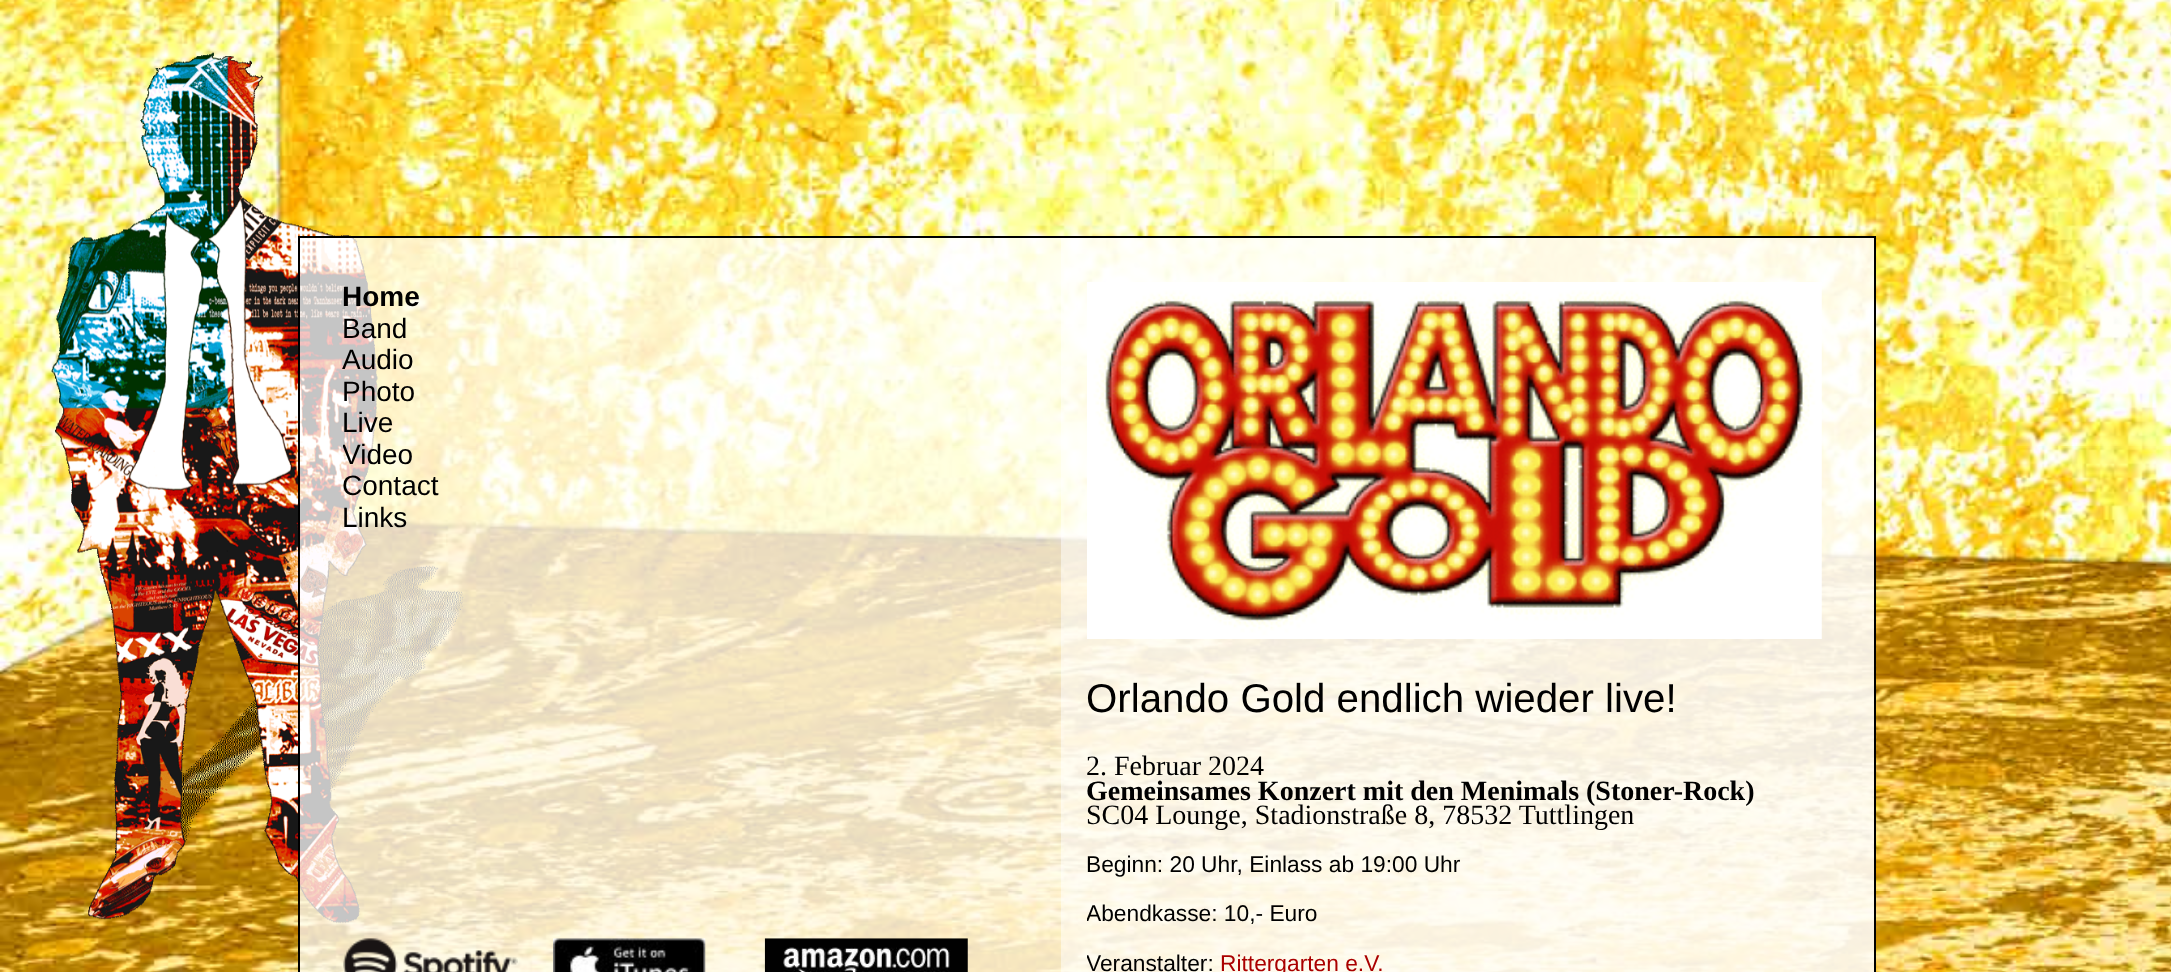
<svg xmlns="http://www.w3.org/2000/svg" width="2171" height="972" viewBox="0 0 2171 972">
  <style>
    .t1 { font: bold 28px Liberation Sans; fill: #000; }
    .t2 { font: 28px Liberation Sans; fill: #000; }
    .t3 { font: 40.25px Liberation Sans; fill: #000; }
    .t4 { font: 28px Liberation Serif; fill: #000; }
    .t5 { font: bold 28px Liberation Serif; fill: #000; }
    .t6 { font: 22.75px Liberation Sans; fill: #000; }
    .t7 { font: 22.75px Liberation Sans; fill: #a00; }
  </style>
  <defs>
    <clipPath id="clip1"><rect x="343" y="282" width="96" height="273"/></clipPath>
    <clipPath id="clip2"><rect x="1087" y="644" width="787" height="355"/></clipPath>
  </defs>
  <rect width="100%" height="100%" fill="#fff"/>
  <image x="0" y="0" width="2171" height="972" href="images/1.png"/>
  <image x="51" y="52" width="413" height="872" href="images/2.png"/>
  <rect x="299" y="237" width="1576" height="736" fill="#ffffffbf" stroke="#000" stroke-width="2"/>
  <text x="342" y="306" class="t1">Home</text>
  <text x="342" y="338" class="t2">Band</text>
  <text x="342" y="369" class="t2">Audio</text>
  <text x="342" y="401" class="t2">Photo</text>
  <text x="342" y="432" class="t2">Live</text>
  <g clip-path="url(#clip1)">
    <text x="342" y="464" class="t2">Video</text>
  </g>
  <text x="342" y="495" class="t2">Contact</text>
  <text x="342" y="527" class="t2">Links</text>
  <image x="343" y="938" width="175" height="34" href="images/3.png"/>
  <image x="553" y="938" width="153" height="34" href="images/4.png"/>
  <image x="764" y="938" width="204" height="34" href="images/5.png"/>
  <rect x="1061" y="238" width="813" height="734" fill="#ffffff80"/>
  <image x="1087" y="282" width="735" height="357" href="images/6.png"/>
  <text x="1086" y="712" class="t3">Orlando Gold endlich wieder live!</text>
  <text x="1086" y="775" class="t4">2. Februar 2024</text>
  <text x="1086" y="800" class="t5">Gemeinsames Konzert mit den Menimals (Stoner-Rock)</text>
  <text x="1086" y="824" class="t4">SC04 Lounge, Stadionstraße 8, 78532 Tuttlingen</text>
  <text x="1086" y="872" class="t6">Beginn: 20 Uhr, Einlass ab 19:00 Uhr</text>
  <g clip-path="url(#clip2)">
    <text x="1086" y="921" class="t6">Abendkasse: 10,- Euro</text>
    <text x="1086" y="971" class="t6">Veranstalter:</text>
  </g>
  <text x="1220" y="971" class="t7">Rittergarten e.V.</text>
</svg>
